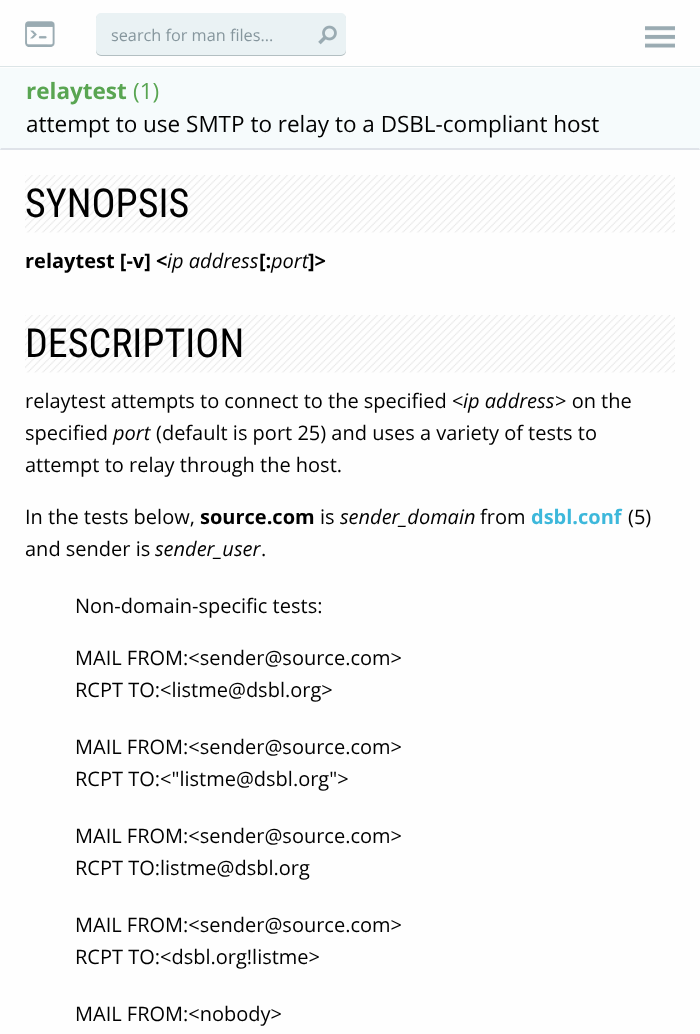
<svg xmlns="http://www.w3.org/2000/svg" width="700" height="1034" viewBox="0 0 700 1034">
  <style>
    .t1 { font: 16.25px Open Sans; fill: #86969d; }
    .t2 { font: bold 22.5px Open Sans; fill: #59a552; }
    .t3 { font: 22.5px Open Sans; fill: #59a552; }
    .t4 { font: 22.5px Open Sans; fill: #000; }
    .t5 { font: 40px Roboto Condensed; fill: #000; }
    .t6 { font: bold 20px Open Sans; fill: #000; }
    .t7 { font: italic 20px Open Sans; fill: #000; }
    .t8 { font: 20px Open Sans; fill: #000; }
    .t9 { font: bold 20px Open Sans; fill: #3db8db; }
  </style>
  <rect width="100%" height="100%" fill="#fefefe"/>
  <rect x="0" y="66" width="700" height="1" fill="#dce5e7"/>
  <image x="25" y="21" width="30" height="26" href="images/1.png"/>
  <rect x="96" y="14" width="250" height="42" rx="5" fill="#062f374d" filter="blur(0.5px)"/>
  <rect x="96" y="13" width="250" height="42" rx="5" fill="#eaf2f4"/>
  <text x="111" y="41" class="t1">search for man files...</text>
  <image x="318" y="25" width="19" height="20" href="images/2.png"/>
  <image x="645" y="26" width="30" height="22" href="images/3.png"/>
  <rect x="0" y="68" width="700" height="82" fill="#f6fbfc"/>
  <path d="M700 150H0L1 148H699Z" fill="#dfe3e9"/>
  <text x="26" y="99" class="t2">relaytest</text>
  <text x="133" y="99" class="t3">(1)</text>
  <text x="26" y="132" class="t4">attempt to use SMTP to relay to a DSBL-compliant host</text>
  <image x="25" y="175" width="650" height="58" href="images/4.png"/>
  <text x="25" y="217" class="t5">SYNOPSIS</text>
  <text x="25" y="268" class="t6">relaytest [-v] &lt;</text>
  <text x="167" y="268" class="t7">ip address</text>
  <text x="259" y="268" class="t6">[:</text>
  <text x="271" y="268" class="t7">port</text>
  <text x="308" y="268" class="t6">]&gt;</text>
  <image x="25" y="315" width="650" height="58" href="images/4.png"/>
  <text x="25" y="357" class="t5">DESCRIPTION</text>
  <text x="25" y="408" class="t8">relaytest attempts to connect to the specified &lt;</text>
  <text x="463" y="408" class="t7">ip address</text>
  <text x="555" y="408" class="t8">&gt; on the</text>
  <text x="25" y="440" class="t8">specified</text>
  <text x="113" y="440" class="t7">port</text>
  <text x="156" y="440" class="t8">(default is port 25) and uses a variety of tests to</text>
  <text x="25" y="472" class="t8">attempt to relay through the host.</text>
  <text x="25" y="524" class="t8">In the tests below,</text>
  <text x="200" y="524" class="t6">source.com</text>
  <text x="320" y="524" class="t8">is</text>
  <text x="340" y="524" class="t7">sender_domain</text>
  <text x="480" y="524" class="t8">from</text>
  <text x="531" y="524" class="t9">dsbl.conf</text>
  <text x="628" y="524" class="t8">(5)</text>
  <text x="25" y="556" class="t8">and sender is</text>
  <text x="155" y="556" class="t7">sender_user</text>
  <text x="261" y="556" class="t8">.</text>
  <text x="75" y="613" class="t8">Non-domain-specific tests:</text>
  <text x="75" y="665" class="t8">MAIL FROM:&lt;sender@source.com&gt;</text>
  <text x="75" y="697" class="t8">RCPT TO:&lt;listme@dsbl.org&gt;</text>
  <text x="75" y="754" class="t8">MAIL FROM:&lt;sender@source.com&gt;</text>
  <text x="75" y="786" class="t8">RCPT TO:&lt;"listme@dsbl.org"&gt;</text>
  <text x="75" y="843" class="t8">MAIL FROM:&lt;sender@source.com&gt;</text>
  <text x="75" y="875" class="t8">RCPT TO:listme@dsbl.org</text>
  <text x="75" y="932" class="t8">MAIL FROM:&lt;sender@source.com&gt;</text>
  <text x="75" y="964" class="t8">RCPT TO:&lt;dsbl.org!listme&gt;</text>
  <text x="75" y="1021" class="t8">MAIL FROM:&lt;nobody&gt;</text>
</svg>
